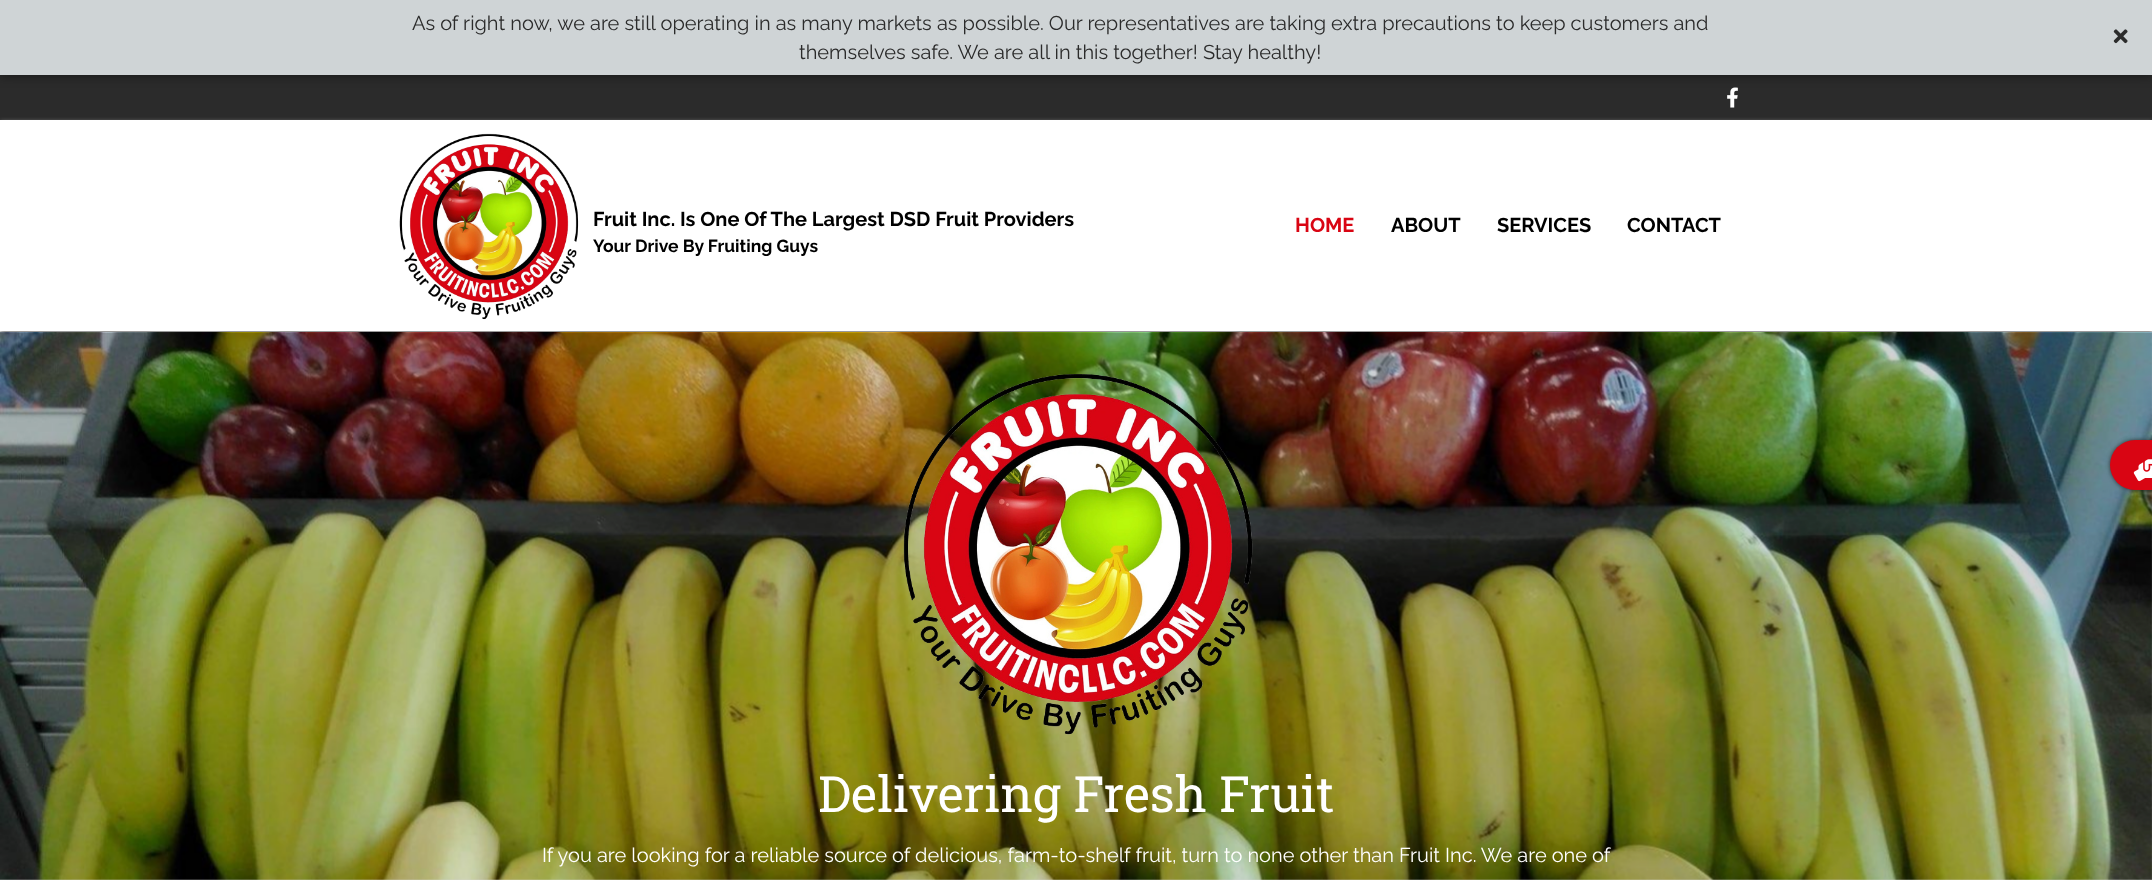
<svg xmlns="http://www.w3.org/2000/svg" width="2152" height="880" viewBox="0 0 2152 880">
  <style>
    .t1 { font: 20px Raleway; fill: #2b2b2b; }
    .t2 { font: bold 20px Raleway; fill: #000; }
    .t3 { font: bold 17.5px Raleway; fill: #000; }
    .t4 { font: bold 20px Raleway; fill: #d90513; }
    .t5 { font: 50px Roboto Slab; fill: #fff; }
    .t6 { font: 20px Raleway; fill: #fff; }
  </style>
  <rect width="100%" height="100%" fill="#fff"/>
  <rect x="0" y="75" width="2152" height="45" fill="#2b2b2b"/>
  <image x="1727" y="87" width="11" height="21" href="images/2.png"/>
  <rect x="0" y="0" width="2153" height="75" fill="#00000080" filter="blur(6px)"/>
  <rect x="0" y="0" width="2152" height="75" fill="#cfd4d6"/>
  <text x="412" y="30" class="t1">As of right now, we are still operating in as many markets as possible. Our representatives are taking extra precautions to keep customers and</text>
  <text x="799" y="59" class="t1">themselves safe. We are all in this together! Stay healthy!</text>
  <image x="2113" y="29" width="15" height="15" href="images/1.png"/>
  <rect x="0" y="121" width="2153" height="212" fill="#777" filter="blur(2px)"/>
  <rect x="0" y="120" width="2152" height="211" fill="#fff"/>
  <image x="399" y="133" width="180" height="187" href="images/3.png"/>
  <text x="593" y="226" class="t2">Fruit Inc. Is One Of The Largest DSD Fruit Providers</text>
  <text x="593" y="252" class="t3">Your Drive By Fruiting Guys</text>
  <text x="1295" y="232" class="t4">HOME</text>
  <text x="1391" y="232" class="t2">ABOUT</text>
  <text x="1497" y="232" class="t2">SERVICES</text>
  <text x="1627" y="232" class="t2">CONTACT</text>
  <image x="0" y="332" width="2152" height="548" href="images/5.png"/>
  <rect x="0" y="333" width="2152" height="547" fill="#0000002b"/>
  <rect x="2110" y="440" width="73" height="50" rx="25" fill="#2b2b2be6" filter="blur(2px)"/>
  <rect x="2110" y="440" width="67" height="50" rx="25" fill="#d90513"/>
  <image x="2133" y="459" width="19" height="23" href="images/4.png"/>
  <image x="903" y="374" width="350" height="361" href="images/6.png"/>
  <text x="818" y="812" class="t5">Delivering Fresh Fruit</text>
  <text x="542" y="862" class="t6">If you are looking for a reliable source of delicious, farm-to-shelf fruit, turn to none other than Fruit Inc. We are one of</text>
</svg>
